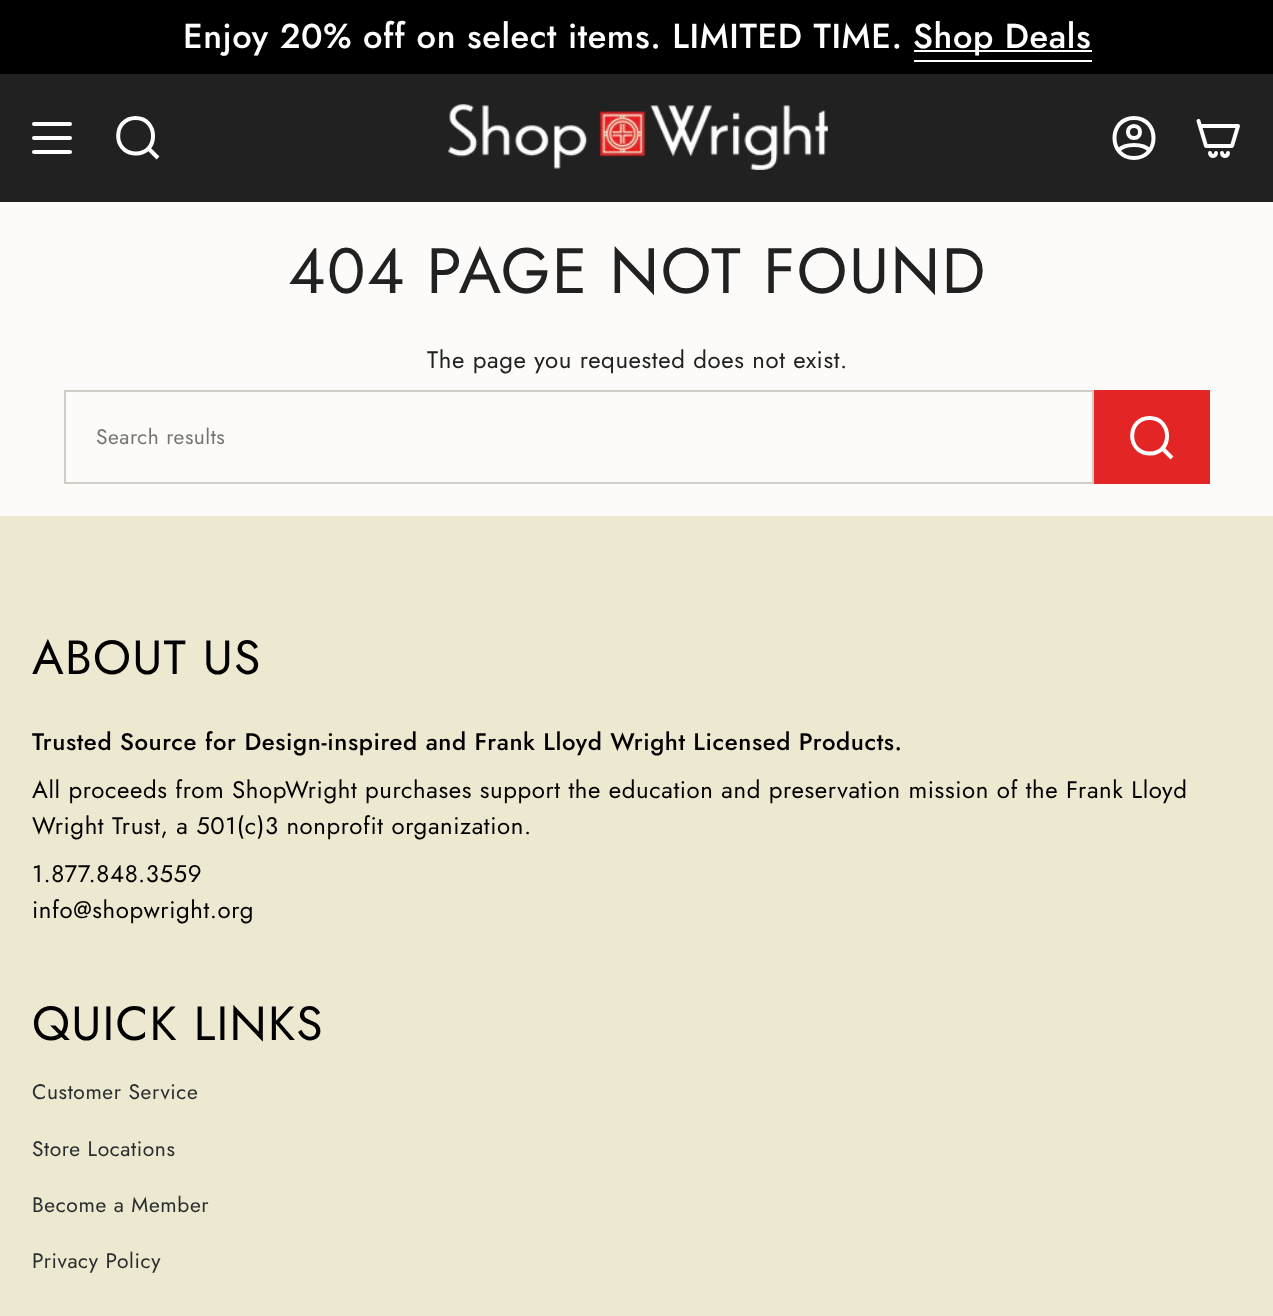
<svg xmlns="http://www.w3.org/2000/svg" width="1273" height="1316" viewBox="0 0 1273 1316">
  <style>
    .t1 { font: 500 34.5px Jost; letter-spacing: 0.6px; fill: #fff; }
    .t2 { font: 64px Jost; letter-spacing: 1.6px; fill: #212121; }
    .t3 { font: 24px Jost; letter-spacing: 0.6px; fill: #212121; }
    .t4 { font: 21px Jost; letter-spacing: 0.5px; fill: #757575; }
    .t5 { font: 48px Jost; letter-spacing: 1.25px; fill: #000; }
    .t6 { font: 500 24px Jost; letter-spacing: 0.6px; fill: #000; }
    .t7 { font: 24px Jost; letter-spacing: 0.6px; fill: #000; }
    .t8 { font: 21px Jost; letter-spacing: 0.6px; fill: #282c2e; }
  </style>
  <rect width="100%" height="100%" fill="#fcfbf9"/>
  <rect x="0" y="0" width="1273" height="74" fill="#000"/>
  <text x="183" y="48" class="t1">Enjoy 20% off on select items. LIMITED TIME.</text>
  <rect x="914" y="50" width="178" height="2" fill="#fff"/>
  <text x="913" y="48" class="t1">Shop Deals</text>
  <rect x="914" y="60" width="178" height="2" fill="#fff"/>
  <rect x="0" y="74" width="1273" height="128" fill="#212121"/>
  <path d="M34 124H70M34 138H70M34 152H70" fill="none" stroke="#fff" stroke-width="4" stroke-linecap="round" stroke-linejoin="round"/>
  <path d="M135.5 118C159 118 159 154.5 135 153.5C112 152.5 113 118 135.5 118ZM148 148L158 158" fill="none" stroke="#fff" stroke-width="4"/>
  <image x="448" y="104" width="380" height="66" href="images/1.png"/>
  <path d="M1134 118C1108 118 1108 158 1134 158C1160 158 1160 118 1134 118ZM1118.5 150.5C1124.5 143 1143.5 143 1149.5 150.5M1134 138C1142 138 1142 126 1134 126C1126 126 1126 138 1134 138Z" fill="none" stroke="#fff" stroke-width="4" stroke-linecap="round" stroke-linejoin="round"/>
  <path d="M1200 126H1238L1232 146H1206ZM1200 126L1198.5 121M1216 153C1216 157 1210 157 1210 153M1228 153C1228 157 1222 157 1222 153" fill="none" stroke="#fff" stroke-width="4" stroke-linecap="round" stroke-linejoin="round"/>
  <text x="288" y="293" class="t2">404 PAGE NOT FOUND</text>
  <text x="427" y="368" class="t3">The page you requested does not exist.</text>
  <rect x="65" y="391" width="1028" height="92" fill="none" stroke="#d1cdc4" stroke-width="2"/>
  <text x="96" y="444" class="t4">Search results</text>
  <rect x="1094" y="390" width="116" height="94" fill="#e32525"/>
  <path d="M1149.5 418C1173 418 1173 454.5 1149 453.5C1126 452.5 1127 418 1149.5 418ZM1162 448L1172 458" fill="none" stroke="#fff" stroke-width="4"/>
  <rect x="0" y="516" width="1273" height="800" fill="#ede8d0"/>
  <text x="32" y="674" class="t5">ABOUT US</text>
  <text x="32" y="750" class="t6">Trusted Source for Design-inspired and Frank Lloyd Wright Licensed Products.</text>
  <text x="32" y="798" class="t7">All proceeds from ShopWright purchases support the education and preservation mission of the Frank Lloyd</text>
  <text x="32" y="834" class="t7">Wright Trust, a 501(c)3 nonprofit organization.</text>
  <text x="32" y="882" class="t7">1.877.848.3559</text>
  <text x="32" y="918" class="t7">info@shopwright.org</text>
  <text x="32" y="1040" class="t5">QUICK LINKS</text>
  <text x="32" y="1099" class="t8">Customer Service</text>
  <text x="32" y="1156" class="t8">Store Locations</text>
  <text x="32" y="1212" class="t8">Become a Member</text>
  <text x="32" y="1268" class="t8">Privacy Policy</text>
</svg>
